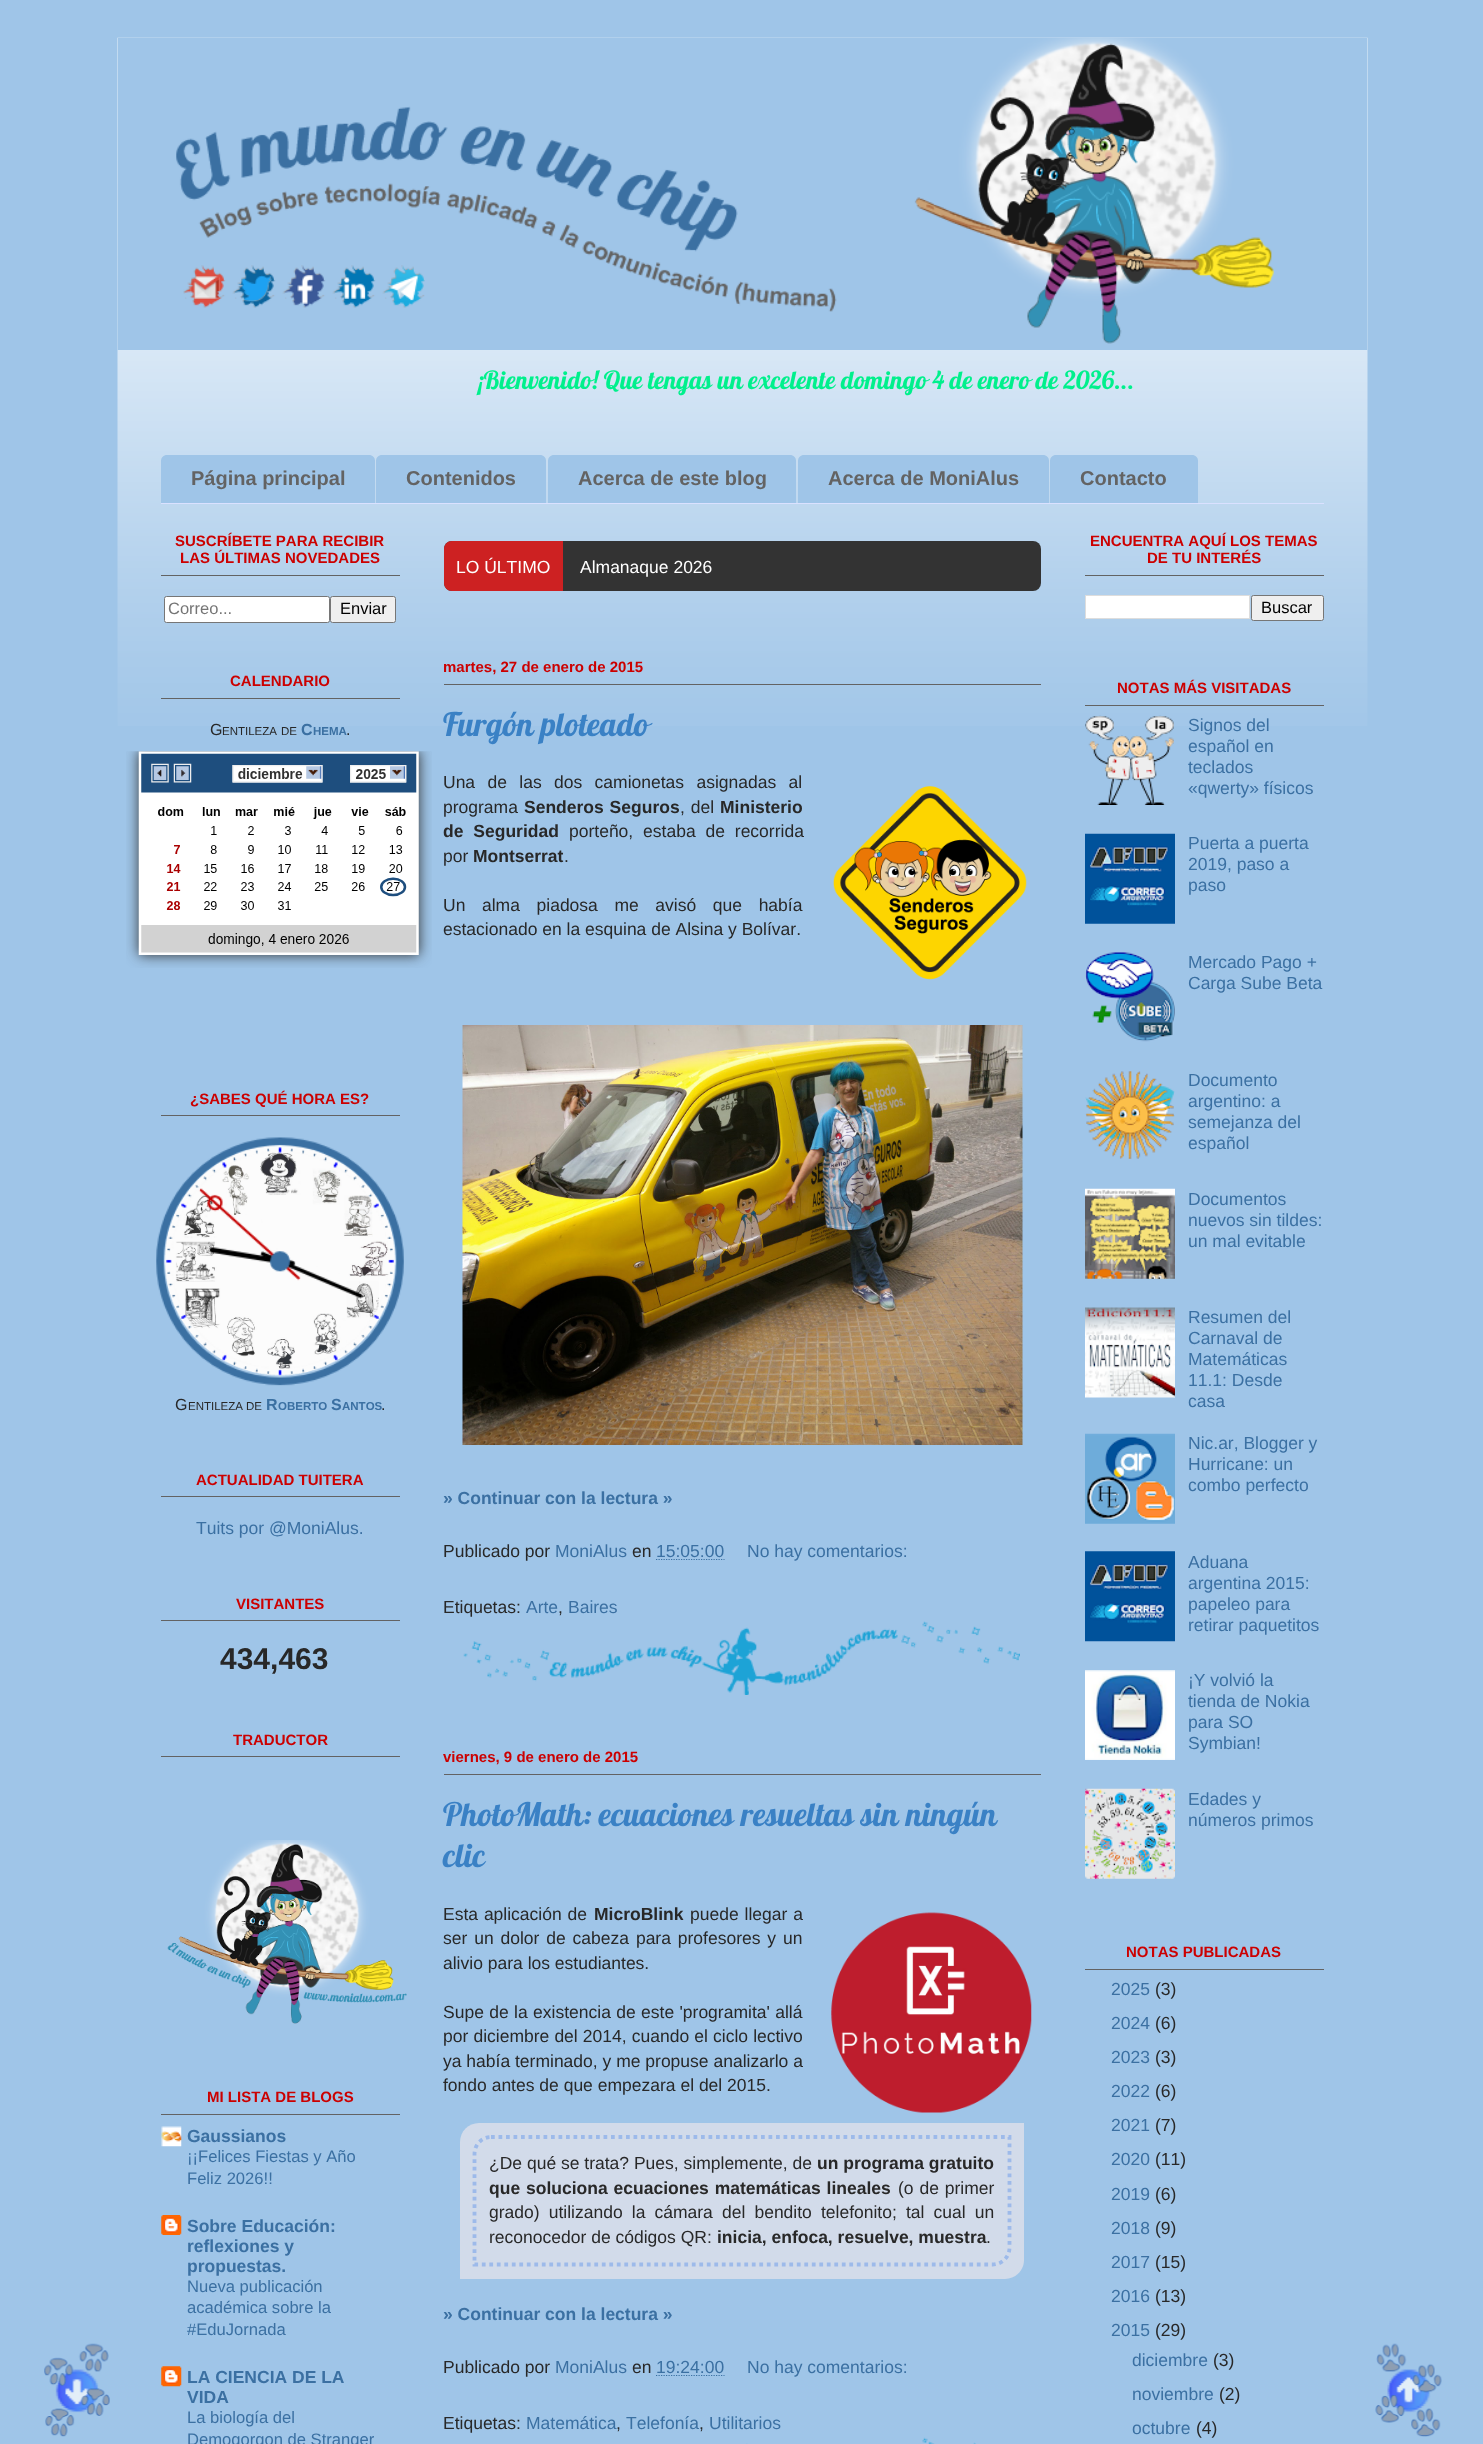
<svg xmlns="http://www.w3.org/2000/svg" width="1483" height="2444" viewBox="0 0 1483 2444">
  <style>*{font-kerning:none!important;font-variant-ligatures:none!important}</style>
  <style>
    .t1 { font: 25px Lobster; fill: #00f08c; }
    .t2 { font: bold 20px Liberation Sans; fill: #636363; }
    .t3 { font: bold 15px Liberation Sans; fill: #c00; }
    .t4 { font: 16.5px Liberation Sans; fill: #757575; }
    .t5 { font: 16.5px Liberation Sans; fill: #000; }
    .t6 { font: 16px Liberation Sans; fill: #282828; }
    .t7 { font: 11.5px Liberation Sans; fill: #282828; }
    .t8 { font: bold 16px Liberation Sans; fill: #3b70a2; }
    .t9 { font: bold 11.5px Liberation Sans; fill: #3b70a2; }
    .t10 { font: 17.5px Liberation Sans; fill: #3b70a2; }
    .t11 { font: bold 30px Liberation Sans; fill: #282828; }
    .t12 { font: bold 17.5px Liberation Sans; fill: #3b70a2; }
    .t13 { font: 16.6px Liberation Sans; fill: #3b70a2; }
    .t14 { font: 17.5px Liberation Sans; fill: #fff; }
    .t15 { font: 32.5px Lobster; fill: #3a81c5; }
    .t16 { font: 17.5px Liberation Sans; fill: #282828; }
    .t17 { font: bold 17.5px Liberation Sans; fill: #282828; }
  </style>
  <rect width="100%" height="100%" fill="#9fc5e8"/>
  <image x="117" y="37" width="1251" height="689" href="images/1.png"/>
  <image x="117" y="37" width="1251" height="313" href="images/2.png"/>
  <image x="183" y="265" width="242" height="43" href="images/3.png"/>
  <text x="478" y="389" class="t1">¡Bienvenido! Que tengas un excelente</text>
  <text x="841" y="389" class="t1">domingo 4 de enero de 2026...</text>
  <rect x="161" y="503" width="1163" height="1" fill="#dae1ff"/>
  <path d="M167 455H369C372.5 455 375 457.5 375 461V503H161V461C161 457.5 163.5 455 167 455Z" fill="#9fc5e8"/>
  <text x="191" y="485" class="t2">Página principal</text>
  <path d="M382 455H540C543.5 455 546 457.5 546 461V503H376V461C376 457.5 378.5 455 382 455Z" fill="#9fc5e8"/>
  <text x="406" y="485" class="t2">Contenidos</text>
  <path d="M554 455H790C793.5 455 796 457.5 796 461V503H548V461C548 457.5 550.5 455 554 455Z" fill="#9fc5e8"/>
  <text x="578" y="485" class="t2">Acerca de este blog</text>
  <path d="M804 455H1043C1046.5 455 1049 457.5 1049 461V503H798V461C798 457.5 800.5 455 804 455Z" fill="#9fc5e8"/>
  <text x="828" y="485" class="t2">Acerca de MoniAlus</text>
  <path d="M1056 455H1192C1195.5 455 1198 457.5 1198 461V503H1050V461C1050 457.5 1052.5 455 1056 455Z" fill="#9fc5e8"/>
  <text x="1080" y="485" class="t2">Contacto</text>
  <rect x="161" y="575" width="239" height="1" fill="#636363"/>
  <text x="175" y="546" class="t3">SUSCRÍBETE PARA RECIBIR</text>
  <text x="180" y="563" class="t3">LAS ÚLTIMAS NOVEDADES</text>
  <rect x="164.5" y="596.5" width="165" height="26" rx="2" fill="#fff" stroke="#767676"/>
  <text x="168" y="614" class="t4">Correo...</text>
  <rect x="330.5" y="596.5" width="65" height="26" rx="2" fill="#efefef" stroke="#767676"/>
  <text x="340" y="614" class="t5">Enviar</text>
  <rect x="161" y="698" width="239" height="1" fill="#636363"/>
  <text x="230" y="686" class="t3">CALENDARIO</text>
  <text x="210" y="735" class="t6">G</text>
  <text x="222" y="735" class="t7">ENTILEZA</text>
  <text x="281" y="735" class="t7">DE</text>
  <text x="301" y="735" class="t8">C</text>
  <text x="313" y="735" class="t9">HEMA</text>
  <text x="346" y="735" class="t6">.</text>
  <image x="126" y="751" width="306" height="217" href="images/4.png"/>
  <rect x="161" y="1115" width="239" height="1" fill="#636363"/>
  <text x="190" y="1104" class="t3">¿SABES QUÉ HORA ES?</text>
  <image x="164" y="1144" width="232" height="232" href="images/6.png"/>
  <image x="156" y="1137" width="248" height="249" href="images/5.png"/>
  <text x="175" y="1410" class="t6">G</text>
  <text x="188" y="1410" class="t7">ENTILEZA</text>
  <text x="246" y="1410" class="t7">DE</text>
  <text x="266" y="1410" class="t8">R</text>
  <text x="278" y="1410" class="t9">OBERTO</text>
  <text x="331" y="1410" class="t8">S</text>
  <text x="342" y="1410" class="t9">ANTOS</text>
  <text x="381" y="1410" class="t6">.</text>
  <rect x="161" y="1496" width="239" height="1" fill="#636363"/>
  <text x="196" y="1485" class="t3">ACTUALIDAD TUITERA</text>
  <text x="196" y="1534" class="t10">Tuits por @MoniAlus.</text>
  <rect x="161" y="1620" width="239" height="1" fill="#636363"/>
  <text x="236" y="1609" class="t3">VISITANTES</text>
  <text x="220" y="1669" class="t11">434,463</text>
  <rect x="161" y="1756" width="239" height="1" fill="#636363"/>
  <text x="233" y="1745" class="t3">TRADUCTOR</text>
  <image x="167" y="1840" width="240" height="184" href="images/7.png"/>
  <rect x="161" y="2114" width="239" height="1" fill="#636363"/>
  <text x="207" y="2102" class="t3">MI LISTA DE BLOGS</text>
  <image x="161" y="2126" width="21" height="21" href="images/8.png"/>
  <text x="187" y="2142" class="t12">Gaussianos</text>
  <text x="187" y="2162" class="t13">¡¡Felices Fiestas y Año</text>
  <text x="187" y="2184" class="t13">Feliz 2026!!</text>
  <image x="161" y="2215" width="21" height="20" href="images/9.png"/>
  <text x="187" y="2232" class="t12">Sobre Educación:</text>
  <text x="187" y="2252" class="t12">reflexiones y</text>
  <text x="187" y="2272" class="t12">propuestas.</text>
  <text x="187" y="2292" class="t13">Nueva publicación</text>
  <text x="187" y="2313" class="t13">académica sobre la</text>
  <text x="187" y="2335" class="t13">#EduJornada</text>
  <image x="161" y="2366" width="21" height="21" href="images/10.png"/>
  <text x="187" y="2383" class="t12">LA CIENCIA DE LA</text>
  <text x="187" y="2403" class="t12">VIDA</text>
  <text x="187" y="2423" class="t13">La biología del</text>
  <text x="187" y="2445" class="t13">Demogorgon de Stranger</text>
  <rect x="444" y="541" width="597" height="50" rx="8" fill="#333"/>
  <path d="M452 541H563V591H452C447.5 591 444 587.5 444 583V549C444 544.5 447.5 541 452 541Z" fill="#cd2122"/>
  <text x="456" y="573" class="t14">LO ÚLTIMO</text>
  <text x="580" y="573" class="t14">Almanaque 2026</text>
  <rect x="444" y="684" width="597" height="1" fill="#636363"/>
  <text x="443" y="672" class="t3">martes, 27 de enero de 2015</text>
  <text x="443" y="736" class="t15">Furgón ploteado</text>
  <text x="443" y="788" word-spacing="7.5" class="t16">Una de las dos camionetas asignadas al</text>
  <text x="443" y="813" class="t16">programa</text>
  <text x="524" y="813" word-spacing="1" class="t17">Senderos Seguros</text>
  <text x="680" y="813" word-spacing="1" class="t16">, del</text>
  <text x="720" y="813" class="t17">Ministerio</text>
  <text x="443" y="837" word-spacing="5" class="t17">de Seguridad</text>
  <text x="569" y="837" word-spacing="5" class="t16">porteño, estaba de recorrida</text>
  <text x="443" y="862" class="t16">por</text>
  <text x="473" y="862" class="t17">Montserrat</text>
  <text x="564" y="862" class="t16">.</text>
  <image x="833" y="786" width="194" height="194" href="images/11.png"/>
  <text x="443" y="911" word-spacing="11.75" class="t16">Un alma piadosa me avisó que había</text>
  <text x="443" y="935" class="t16">estacionado en la esquina de Alsina y Bolívar.</text>
  <image x="462" y="1025" width="561" height="420" href="images/12.png"/>
  <text x="443" y="1504" class="t12">» Continuar con la lectura »</text>
  <text x="443" y="1557" class="t16">Publicado por</text>
  <text x="555" y="1557" class="t10">MoniAlus</text>
  <text x="632" y="1557" class="t16">en</text>
  <text x="656" y="1557" class="t10">15:05:00</text>
  <path d="M656 1559.5H724.5" fill="none" stroke="#3b70a2" stroke-width="1.2" stroke-dasharray="1.25 1.25"/>
  <text x="747" y="1557" class="t10">No hay comentarios:</text>
  <text x="443" y="1613" class="t16">Etiquetas:</text>
  <text x="526" y="1613" class="t10">Arte</text>
  <text x="558" y="1613" class="t16">,</text>
  <text x="568" y="1613" class="t10">Baires</text>
  <image x="463" y="1621" width="557" height="74" href="images/13.png"/>
  <rect x="444" y="1774" width="597" height="1" fill="#636363"/>
  <text x="443" y="1762" class="t3">viernes, 9 de enero de 2015</text>
  <text x="443" y="1826" class="t15">PhotoMath: ecuaciones resueltas sin</text>
  <text x="906" y="1826" class="t15">ningún</text>
  <text x="443" y="1867" class="t15">clic</text>
  <text x="443" y="1920" word-spacing="1" class="t16">Esta aplicación de</text>
  <text x="594" y="1920" class="t17">MicroBlink</text>
  <text x="690" y="1920" word-spacing="1" class="t16">puede llegar a</text>
  <text x="443" y="1944" word-spacing="2" class="t16">ser un dolor de cabeza para profesores y un</text>
  <text x="443" y="1969" class="t16">alivio para los estudiantes.</text>
  <image x="831" y="1912" width="201" height="201" href="images/14.png"/>
  <text x="443" y="2018" word-spacing="0.5" class="t16">Supe de la existencia de este 'programita' allá</text>
  <text x="443" y="2042" word-spacing="0.25" class="t16">por diciembre del 2014, cuando el ciclo lectivo</text>
  <text x="443" y="2067" class="t16">ya había terminado, y me propuse analizarlo a</text>
  <text x="443" y="2091" class="t16">fondo antes de que empezara el del 2015.</text>
  <path d="M479 2123H1024V2260C1024 2270.5 1015.5 2279 1005 2279H460V2142C460 2131.5 468.5 2123 479 2123Z" fill="#d2dbea"/>
  <path d="M491 2137H1009.5V2247.5C1009.5 2257 1002 2264.5 992.5 2264.5H474.5V2154C474.5 2144.5 482 2137 491 2137Z" fill="none" stroke="#9dbaea" stroke-width="3.8" stroke-dasharray="3.75 3.75"/>
  <text x="489" y="2169" class="t16">¿De qué se trata? Pues, simplemente, de</text>
  <text x="817" y="2169" class="t17">un programa gratuito</text>
  <text x="489" y="2194" word-spacing="1" class="t17">que soluciona ecuaciones matemáticas lineales</text>
  <text x="898" y="2194" word-spacing="1" class="t16">(o de primer</text>
  <text x="489" y="2218" word-spacing="4.25" class="t16">grado) utilizando la cámara del bendito telefonito; tal cual un</text>
  <text x="489" y="2243" class="t16">reconocedor de códigos QR:</text>
  <text x="717" y="2243" class="t17">inicia, enfoca, resuelve, muestra</text>
  <text x="986" y="2243" class="t16">.</text>
  <text x="443" y="2320" class="t12">» Continuar con la lectura »</text>
  <text x="443" y="2373" class="t16">Publicado por</text>
  <text x="555" y="2373" class="t10">MoniAlus</text>
  <text x="632" y="2373" class="t16">en</text>
  <text x="656" y="2373" class="t10">19:24:00</text>
  <path d="M656 2375.5H724.5" fill="none" stroke="#3b70a2" stroke-width="1.2" stroke-dasharray="1.25 1.25"/>
  <text x="747" y="2373" class="t10">No hay comentarios:</text>
  <text x="443" y="2429" class="t16">Etiquetas:</text>
  <text x="526" y="2429" class="t10">Matemática</text>
  <text x="616" y="2429" class="t16">,</text>
  <text x="626" y="2429" class="t10">Telefonía</text>
  <text x="699" y="2429" class="t16">,</text>
  <text x="709" y="2429" class="t10">Utilitarios</text>
  <image x="746" y="2437" width="230" height="7" href="images/15.png"/>
  <rect x="1085" y="575" width="239" height="1" fill="#636363"/>
  <text x="1090" y="546" class="t3">ENCUENTRA AQUÍ LOS TEMAS</text>
  <text x="1147" y="563" class="t3">DE TU INTERÉS</text>
  <rect x="1085.5" y="595.5" width="164" height="23" fill="#fff" stroke="#ddd"/>
  <rect x="1251.5" y="595.5" width="72" height="25" rx="2" fill="#efefef" stroke="#767676"/>
  <text x="1261" y="613" class="t5">Buscar</text>
  <rect x="1085" y="705" width="239" height="1" fill="#636363"/>
  <text x="1117" y="693" class="t3">NOTAS MÁS VISITADAS</text>
  <image x="1085" y="715" width="89" height="90" href="images/16.png"/>
  <text x="1188" y="731" class="t10">Signos del</text>
  <text x="1188" y="752" class="t10">español en</text>
  <text x="1188" y="773" class="t10">teclados</text>
  <text x="1188" y="794" class="t10">«qwerty» físicos</text>
  <image x="1085" y="833" width="90" height="91" href="images/17.png"/>
  <text x="1188" y="849" class="t10">Puerta a puerta</text>
  <text x="1188" y="870" class="t10">2019, paso a</text>
  <text x="1188" y="891" class="t10">paso</text>
  <image x="1085" y="952" width="90" height="90" href="images/18.png"/>
  <text x="1188" y="968" class="t10">Mercado Pago +</text>
  <text x="1188" y="989" class="t10">Carga Sube Beta</text>
  <image x="1085" y="1071" width="90" height="88" href="images/19.png"/>
  <text x="1188" y="1086" class="t10">Documento</text>
  <text x="1188" y="1107" class="t10">argentino: a</text>
  <text x="1188" y="1128" class="t10">semejanza del</text>
  <text x="1188" y="1149" class="t10">español</text>
  <image x="1085" y="1188" width="90" height="91" href="images/20.png"/>
  <text x="1188" y="1205" class="t10">Documentos</text>
  <text x="1188" y="1226" class="t10">nuevos sin tildes:</text>
  <text x="1188" y="1247" class="t10">un mal evitable</text>
  <image x="1085" y="1307" width="90" height="91" href="images/21.png"/>
  <text x="1188" y="1323" class="t10">Resumen del</text>
  <text x="1188" y="1344" class="t10">Carnaval de</text>
  <text x="1188" y="1365" class="t10">Matemáticas</text>
  <text x="1188" y="1386" class="t10">11.1: Desde</text>
  <text x="1188" y="1407" class="t10">casa</text>
  <image x="1085" y="1433" width="90" height="91" href="images/22.png"/>
  <text x="1188" y="1449" class="t10">Nic.ar, Blogger y</text>
  <text x="1188" y="1470" class="t10">Hurricane: un</text>
  <text x="1188" y="1491" class="t10">combo perfecto</text>
  <image x="1085" y="1551" width="90" height="91" href="images/23.png"/>
  <text x="1188" y="1568" class="t10">Aduana</text>
  <text x="1188" y="1589" class="t10">argentina 2015:</text>
  <text x="1188" y="1610" class="t10">papeleo para</text>
  <text x="1188" y="1631" class="t10">retirar paquetitos</text>
  <image x="1085" y="1670" width="90" height="90" href="images/24.png"/>
  <text x="1188" y="1686" class="t10">¡Y volvió la</text>
  <text x="1188" y="1707" class="t10">tienda de Nokia</text>
  <text x="1188" y="1728" class="t10">para SO</text>
  <text x="1188" y="1749" class="t10">Symbian!</text>
  <image x="1085" y="1788" width="90" height="91" href="images/25.png"/>
  <text x="1188" y="1805" class="t10">Edades y</text>
  <text x="1188" y="1826" class="t10">números primos</text>
  <rect x="1085" y="1969" width="239" height="1" fill="#636363"/>
  <text x="1126" y="1957" class="t3">NOTAS PUBLICADAS</text>
  <text x="1111" y="1995" class="t10">2025</text>
  <text x="1155" y="1995" class="t16">(3)</text>
  <text x="1111" y="2029" class="t10">2024</text>
  <text x="1155" y="2029" class="t16">(6)</text>
  <text x="1111" y="2063" class="t10">2023</text>
  <text x="1155" y="2063" class="t16">(3)</text>
  <text x="1111" y="2097" class="t10">2022</text>
  <text x="1155" y="2097" class="t16">(6)</text>
  <text x="1111" y="2131" class="t10">2021</text>
  <text x="1155" y="2131" class="t16">(7)</text>
  <text x="1111" y="2165" class="t10">2020</text>
  <text x="1155" y="2165" class="t16">(11)</text>
  <text x="1111" y="2200" class="t10">2019</text>
  <text x="1155" y="2200" class="t16">(6)</text>
  <text x="1111" y="2234" class="t10">2018</text>
  <text x="1155" y="2234" class="t16">(9)</text>
  <text x="1111" y="2268" class="t10">2017</text>
  <text x="1155" y="2268" class="t16">(15)</text>
  <text x="1111" y="2302" class="t10">2016</text>
  <text x="1155" y="2302" class="t16">(13)</text>
  <text x="1111" y="2336" class="t10">2015</text>
  <text x="1155" y="2336" class="t16">(29)</text>
  <text x="1132" y="2366" class="t10">diciembre</text>
  <text x="1213" y="2366" class="t16">(3)</text>
  <text x="1132" y="2400" class="t10">noviembre</text>
  <text x="1219" y="2400" class="t16">(2)</text>
  <text x="1132" y="2434" class="t10">octubre</text>
  <text x="1196" y="2434" class="t16">(4)</text>
  <image x="44" y="2343" width="66" height="94" href="images/26.png"/>
  <image x="1375" y="2343" width="67" height="94" href="images/27.png"/>
</svg>
